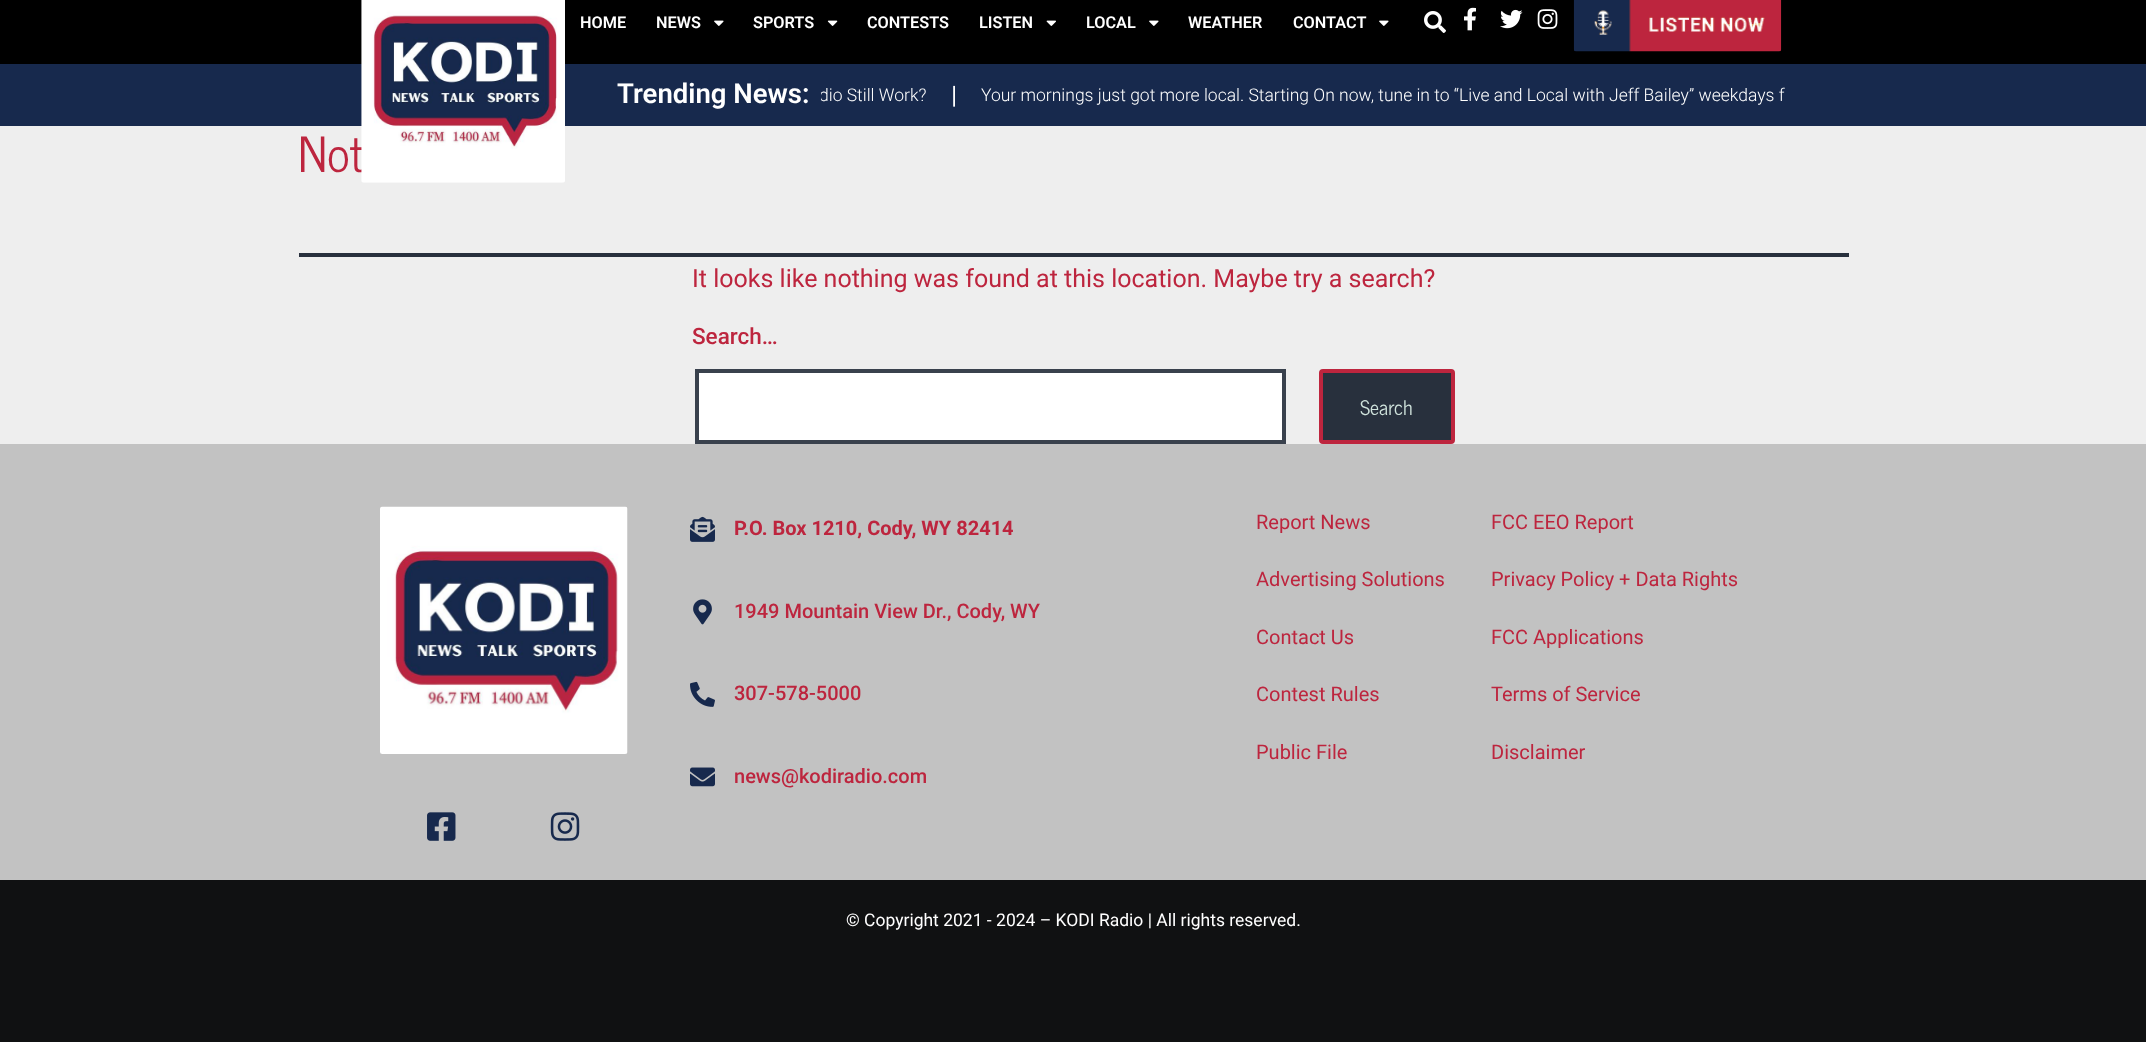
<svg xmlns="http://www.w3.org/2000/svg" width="2146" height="1042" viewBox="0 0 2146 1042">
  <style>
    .t1 { font: 48px News Cycle; fill: #bd253e; }
    .t2 { font: 600 16.25px Roboto; fill: #fff; }
    .t3 { font: 600 27.5px Roboto; fill: #fff; }
    .t4 { font: 300 17.5px Roboto; fill: #fff; }
    .t5 { font: 25px News Cycle; fill: #fff; }
    .t6 { font: 25px Roboto; fill: #bd253e; }
    .t7 { font: 500 22.5px Roboto; fill: #bd253e; }
    .t8 { font: 20px News Cycle; fill: #d1e4dd; }
    .t9 { font: bold 20px Roboto; fill: #bd253e; }
    .t10 { font: 500 20px Roboto; fill: #bd253e; }
    .t11 { font: 20px Roboto; fill: #bd253e; }
    .t12 { font: 17.5px Roboto; fill: #fff; }
  </style>
  <defs>
    <clipPath id="clip1"><rect x="821" y="79" width="965" height="32"/></clipPath>
  </defs>
  <rect width="100%" height="100%" fill="#eee"/>
  <rect x="0" y="0" width="2146" height="64" fill="#000"/>
  <rect x="0" y="64" width="2146" height="62" fill="#17294d"/>
  <text x="298" y="172" class="t1">Not</text>
  <image x="361" y="0" width="204" height="183" href="images/1.png"/>
  <text x="580" y="28" class="t2">HOME</text>
  <text x="656" y="28" class="t2">NEWS</text>
  <image x="714" y="20" width="10" height="6" href="images/2.png"/>
  <text x="753" y="28" class="t2">SPORTS</text>
  <image x="827" y="20" width="11" height="6" href="images/3.png"/>
  <text x="867" y="28" class="t2">CONTESTS</text>
  <text x="979" y="28" class="t2">LISTEN</text>
  <image x="1046" y="20" width="10" height="6" href="images/4.png"/>
  <text x="1086" y="28" class="t2">LOCAL</text>
  <image x="1149" y="20" width="10" height="6" href="images/2.png"/>
  <text x="1188" y="28" class="t2">WEATHER</text>
  <text x="1293" y="28" class="t2">CONTACT</text>
  <image x="1379" y="20" width="10" height="6" href="images/2.png"/>
  <image x="1424" y="11" width="22" height="22" href="images/5.png"/>
  <image x="1464" y="7" width="12" height="24" href="images/6.png"/>
  <image x="1500" y="9" width="23" height="20" href="images/7.png"/>
  <image x="1537" y="9" width="21" height="20" href="images/8.png"/>
  <image x="1573" y="0" width="209" height="52" href="images/9.png"/>
  <text x="617" y="103" class="t3">Trending News:</text>
  <g clip-path="url(#clip1)">
    <text x="819" y="101" class="t4">dio Still Work?</text>
  </g>
  <text x="952" y="105" class="t5">|</text>
  <text x="981" y="101" class="t4">Your mornings just got more local. Starting On now, tune in to “Live and Local with Jeff Bailey” weekdays f</text>
  <rect x="299" y="253" width="1550" height="4" fill="#28303d"/>
  <text x="692" y="287" class="t6">It looks like nothing was found at this location. Maybe try a search?</text>
  <text x="692" y="344" class="t7">Search…</text>
  <rect x="695" y="369" width="591" height="75" fill="#00000080" filter="blur(0.5px)"/>
  <rect x="697" y="371" width="587" height="71" fill="#fff" stroke="#39414d" stroke-width="4"/>
  <rect x="1321" y="371" width="132" height="71" rx="2" fill="#28303d" stroke="#bd253e" stroke-width="4"/>
  <text x="1360" y="415" class="t8">Search</text>
  <rect x="0" y="444" width="2146" height="436" fill="#c2c2c2"/>
  <image x="380" y="506" width="248" height="248" href="images/10.png"/>
  <image x="427" y="812" width="29" height="29" href="images/11.png"/>
  <image x="550" y="812" width="30" height="29" href="images/12.png"/>
  <image x="690" y="516" width="25" height="26" href="images/13.png"/>
  <text x="734" y="535" class="t9">P.O. Box 1210, Cody, WY 82414</text>
  <image x="693" y="599" width="19" height="26" href="images/14.png"/>
  <text x="734" y="618" class="t10">1949 Mountain View Dr., Cody, WY</text>
  <image x="690" y="681" width="25" height="26" href="images/15.png"/>
  <text x="734" y="700" class="t10">307-578-5000</text>
  <image x="690" y="767" width="25" height="20" href="images/16.png"/>
  <text x="734" y="783" class="t10">news@kodiradio.com</text>
  <text x="1256" y="529" class="t11">Report News</text>
  <text x="1491" y="529" class="t11">FCC EEO Report</text>
  <text x="1256" y="586" class="t11">Advertising Solutions</text>
  <text x="1491" y="586" class="t11">Privacy Policy + Data Rights</text>
  <text x="1256" y="644" class="t11">Contact Us</text>
  <text x="1491" y="644" class="t11">FCC Applications</text>
  <text x="1256" y="701" class="t11">Contest Rules</text>
  <text x="1491" y="701" class="t11">Terms of Service</text>
  <text x="1256" y="759" class="t11">Public File</text>
  <text x="1491" y="759" class="t11">Disclaimer</text>
  <rect x="0" y="880" width="2146" height="162" fill="#101112"/>
  <text x="846" y="926" class="t12">© Copyright 2021 - 2024 – KODI Radio | All rights reserved.</text>
</svg>
